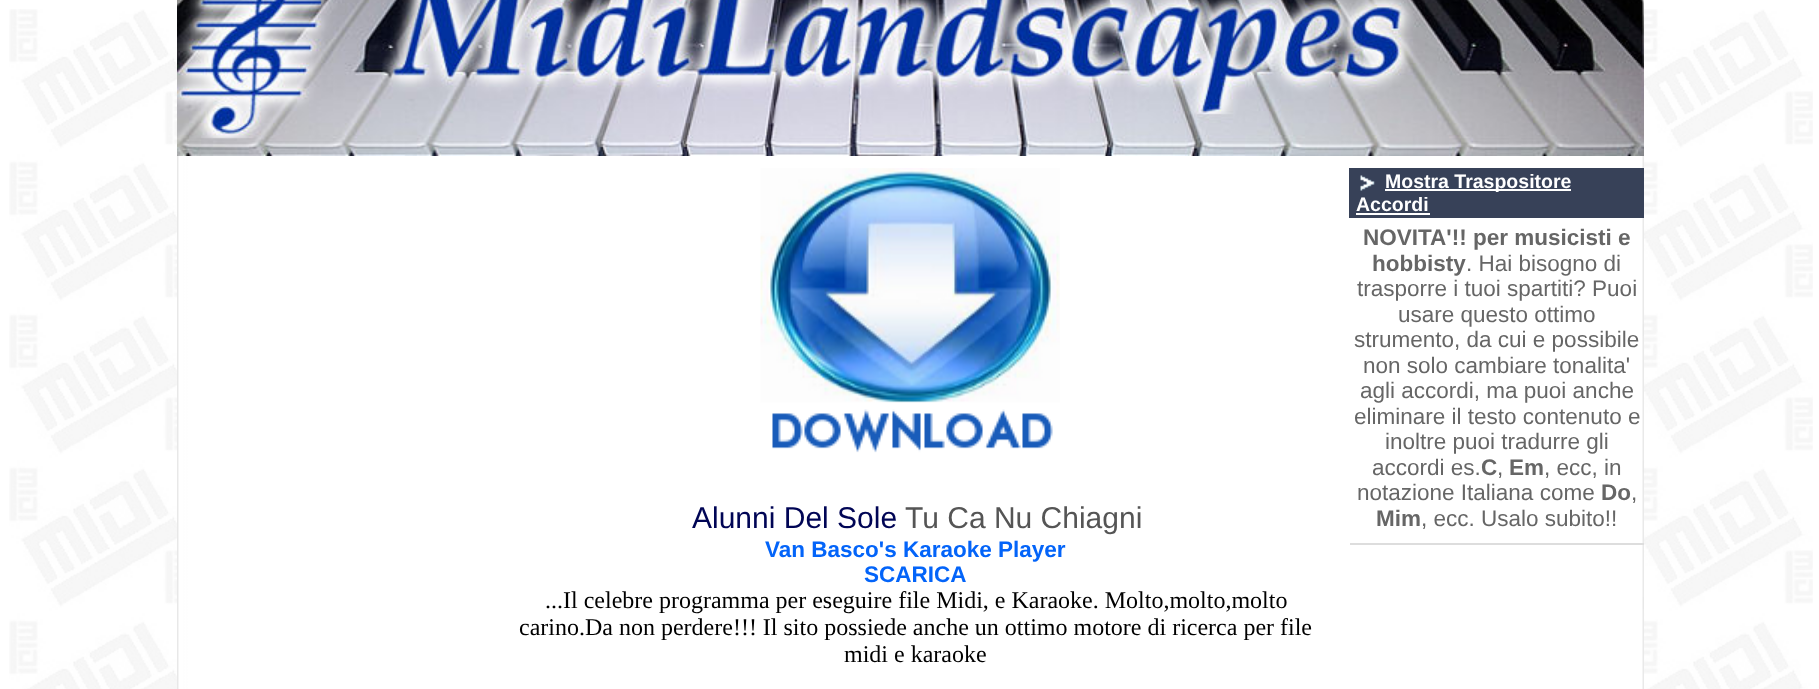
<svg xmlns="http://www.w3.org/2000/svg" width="1819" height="689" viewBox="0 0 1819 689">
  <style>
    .t1 { font: bold 19.5px Liberation Sans; fill: #fff; }
    .t2 { font: bold 22.5px Liberation Sans; fill: #666; }
    .t3 { font: 22.5px Liberation Sans; fill: #666; }
    .t4 { font: 30px Liberation Sans; fill: #000555; }
    .t5 { font: 30px Liberation Sans; fill: #555; }
    .t6 { font: bold 22.5px Liberation Sans; fill: #0364f9; }
    .t7 { font: 24px Liberation Serif; fill: #000; }
  </style>
  <rect width="100%" height="100%" fill="#fff"/>
  <image x="9" y="9" width="1804" height="680" href="images/1.png"/>
  <image x="177" y="156" width="1467" height="533" href="images/2.png"/>
  <image x="177" y="0" width="1467" height="156" href="images/3.png"/>
  <rect x="1349" y="168" width="295" height="50" fill="#374158"/>
  <image x="1360" y="175" width="15" height="16" href="images/4.png"/>
  <rect x="1385" y="189" width="186" height="2" fill="#fff"/>
  <text x="1385" y="188" class="t1">Mostra Traspositore</text>
  <text x="1356" y="211" class="t1">Accordi</text>
  <rect x="1356" y="213" width="74" height="2" fill="#fff"/>
  <rect x="1350" y="543" width="294" height="2" fill="#ddd"/>
  <text x="1363" y="245" class="t2">NOVITA'!! per musicisti e</text>
  <text x="1372" y="271" class="t2">hobbisty</text>
  <text x="1466" y="271" class="t3">. Hai bisogno di</text>
  <text x="1357" y="296" class="t3">trasporre i tuoi spartiti? Puoi</text>
  <text x="1398" y="322" class="t3">usare questo ottimo</text>
  <text x="1354" y="347" class="t3">strumento, da cui e possibile</text>
  <text x="1363" y="373" class="t3">non solo cambiare tonalita'</text>
  <text x="1360" y="398" class="t3">agli accordi, ma puoi anche</text>
  <text x="1354" y="424" class="t3">eliminare il testo contenuto e</text>
  <text x="1385" y="449" class="t3">inoltre puoi tradurre gli</text>
  <text x="1372" y="475" class="t3">accordi es.</text>
  <text x="1481" y="475" class="t2">C</text>
  <text x="1497" y="475" class="t3">,</text>
  <text x="1509" y="475" class="t2">Em</text>
  <text x="1544" y="475" class="t3">, ecc, in</text>
  <text x="1357" y="500" class="t3">notazione Italiana come</text>
  <text x="1601" y="500" class="t2">Do</text>
  <text x="1631" y="500" class="t3">,</text>
  <text x="1376" y="526" class="t2">Mim</text>
  <text x="1421" y="526" class="t3">, ecc. Usalo subito!!</text>
  <image x="760" y="168" width="300" height="285" href="images/5.png"/>
  <text x="692" y="528" class="t4">Alunni Del Sole</text>
  <text x="905" y="528" class="t5">Tu Ca Nu Chiagni</text>
  <text x="765" y="557" class="t6">Van Basco's Karaoke Player</text>
  <text x="864" y="582" class="t6">SCARICA</text>
  <text x="545" y="608" class="t7">...Il celebre programma per eseguire file Midi, e Karaoke. Molto,molto,molto</text>
  <text x="519" y="635" class="t7">carino.Da non perdere!!! Il sito possiede anche un ottimo motore di ricerca per file</text>
  <text x="844" y="662" class="t7">midi e karaoke</text>
</svg>
